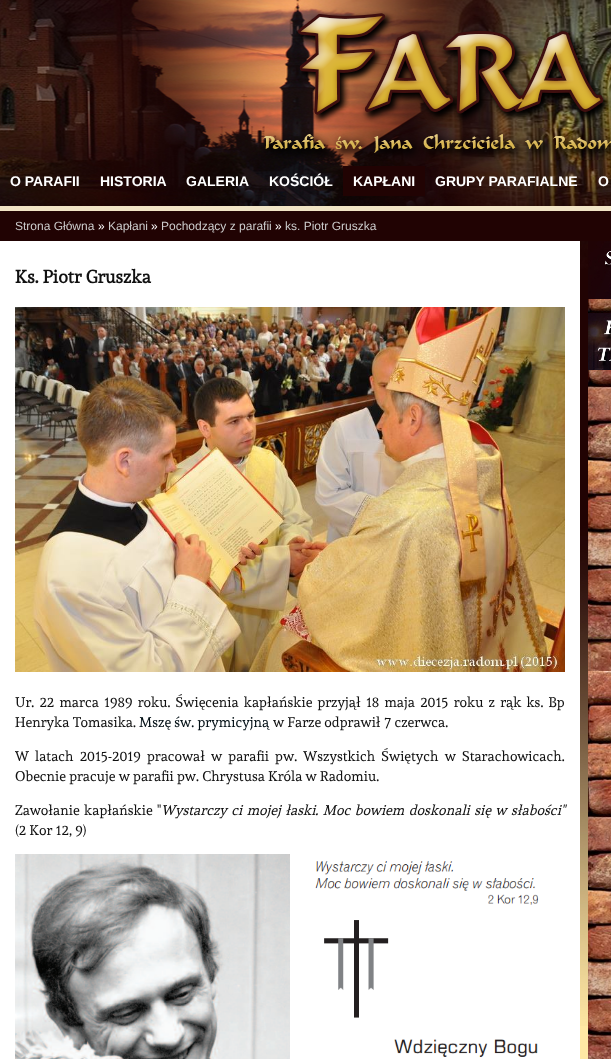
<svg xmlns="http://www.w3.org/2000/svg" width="611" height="1059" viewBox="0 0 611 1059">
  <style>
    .t1 { font: bold 14px Liberation Sans; fill: #fff; }
    .t2 { font: 12px Liberation Sans; fill: #ccc; }
    .t3 { font: 12px Liberation Sans; fill: #fff; }
    .t4 { font: bold 18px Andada; fill: #111; }
    .t5 { font: 14px Andada; fill: #111; }
    .t6 { font: 14px Andada; fill: #000e14; }
    .t7 { font: italic 14px Andada; fill: #111; }
  </style>
  <rect width="100%" height="100%" fill="#ffe8a4"/>
  <image x="0" y="0" width="611" height="1026" href="images/1.png"/>
  <image x="261" y="11" width="350" height="150" href="images/2.png"/>
  <text x="10" y="186" class="t1">O PARAFII</text>
  <text x="100" y="186" class="t1">HISTORIA</text>
  <text x="186" y="186" class="t1">GALERIA</text>
  <text x="269" y="186" class="t1">KOŚCIÓŁ</text>
  <rect x="343" y="166" width="82" height="30" fill="#210303"/>
  <text x="353" y="186" class="t1">KAPŁANI</text>
  <text x="435" y="186" class="t1">GRUPY PARAFIALNE</text>
  <text x="598" y="186" class="t1">O</text>
  <rect x="0" y="211" width="611" height="30" fill="#210303"/>
  <rect x="0" y="206" width="611" height="5" fill="#f1e4c5"/>
  <text x="15" y="230" class="t2">Strona Główna</text>
  <text x="98" y="230" class="t3">»</text>
  <text x="108" y="230" class="t2">Kapłani</text>
  <text x="151" y="230" class="t3">»</text>
  <text x="161" y="230" class="t2">Pochodzący z parafii</text>
  <text x="275" y="230" class="t3">»</text>
  <text x="285" y="230" class="t2">ks. Piotr Gruszka</text>
  <rect x="0" y="241" width="580" height="818" fill="#fff"/>
  <text x="15" y="283" class="t4">Ks. Piotr Gruszka</text>
  <image x="15" y="307" width="550" height="365" href="images/3.png"/>
  <text x="15" y="707" word-spacing="1.9" class="t5">Ur. 22 marca 1989 roku. Święcenia kapłańskie przyjął 18 maja 2015 roku z rąk ks. Bp</text>
  <text x="15" y="727" class="t5">Henryka Tomasika.</text>
  <text x="139" y="727" class="t6">Mszę św. prymicyjną</text>
  <text x="273" y="727" class="t5">w Farze odprawił 7 czerwca.</text>
  <text x="15" y="761" word-spacing="2.9" class="t5">W latach 2015-2019 pracował w parafii pw. Wszystkich Świętych w Starachowicach.</text>
  <text x="15" y="781" class="t5">Obecnie pracuje w parafii pw. Chrystusa Króla w Radomiu.</text>
  <text x="15" y="815" word-spacing="1.25" class="t5">Zawołanie kapłańskie "</text>
  <text x="161" y="815" word-spacing="1.25" class="t7">Wystarczy ci mojej łaski. Moc bowiem doskonali się w słabości"</text>
  <text x="15" y="835" class="t5">(2 Kor 12, 9)</text>
  <image x="15" y="854" width="524" height="205" href="images/4.png"/>
  <image x="588" y="299" width="23" height="760" href="images/5.png"/>
  <image x="588" y="241" width="23" height="58" href="images/6.png"/>
  <image x="588" y="313" width="23" height="57" href="images/7.png"/>
</svg>
